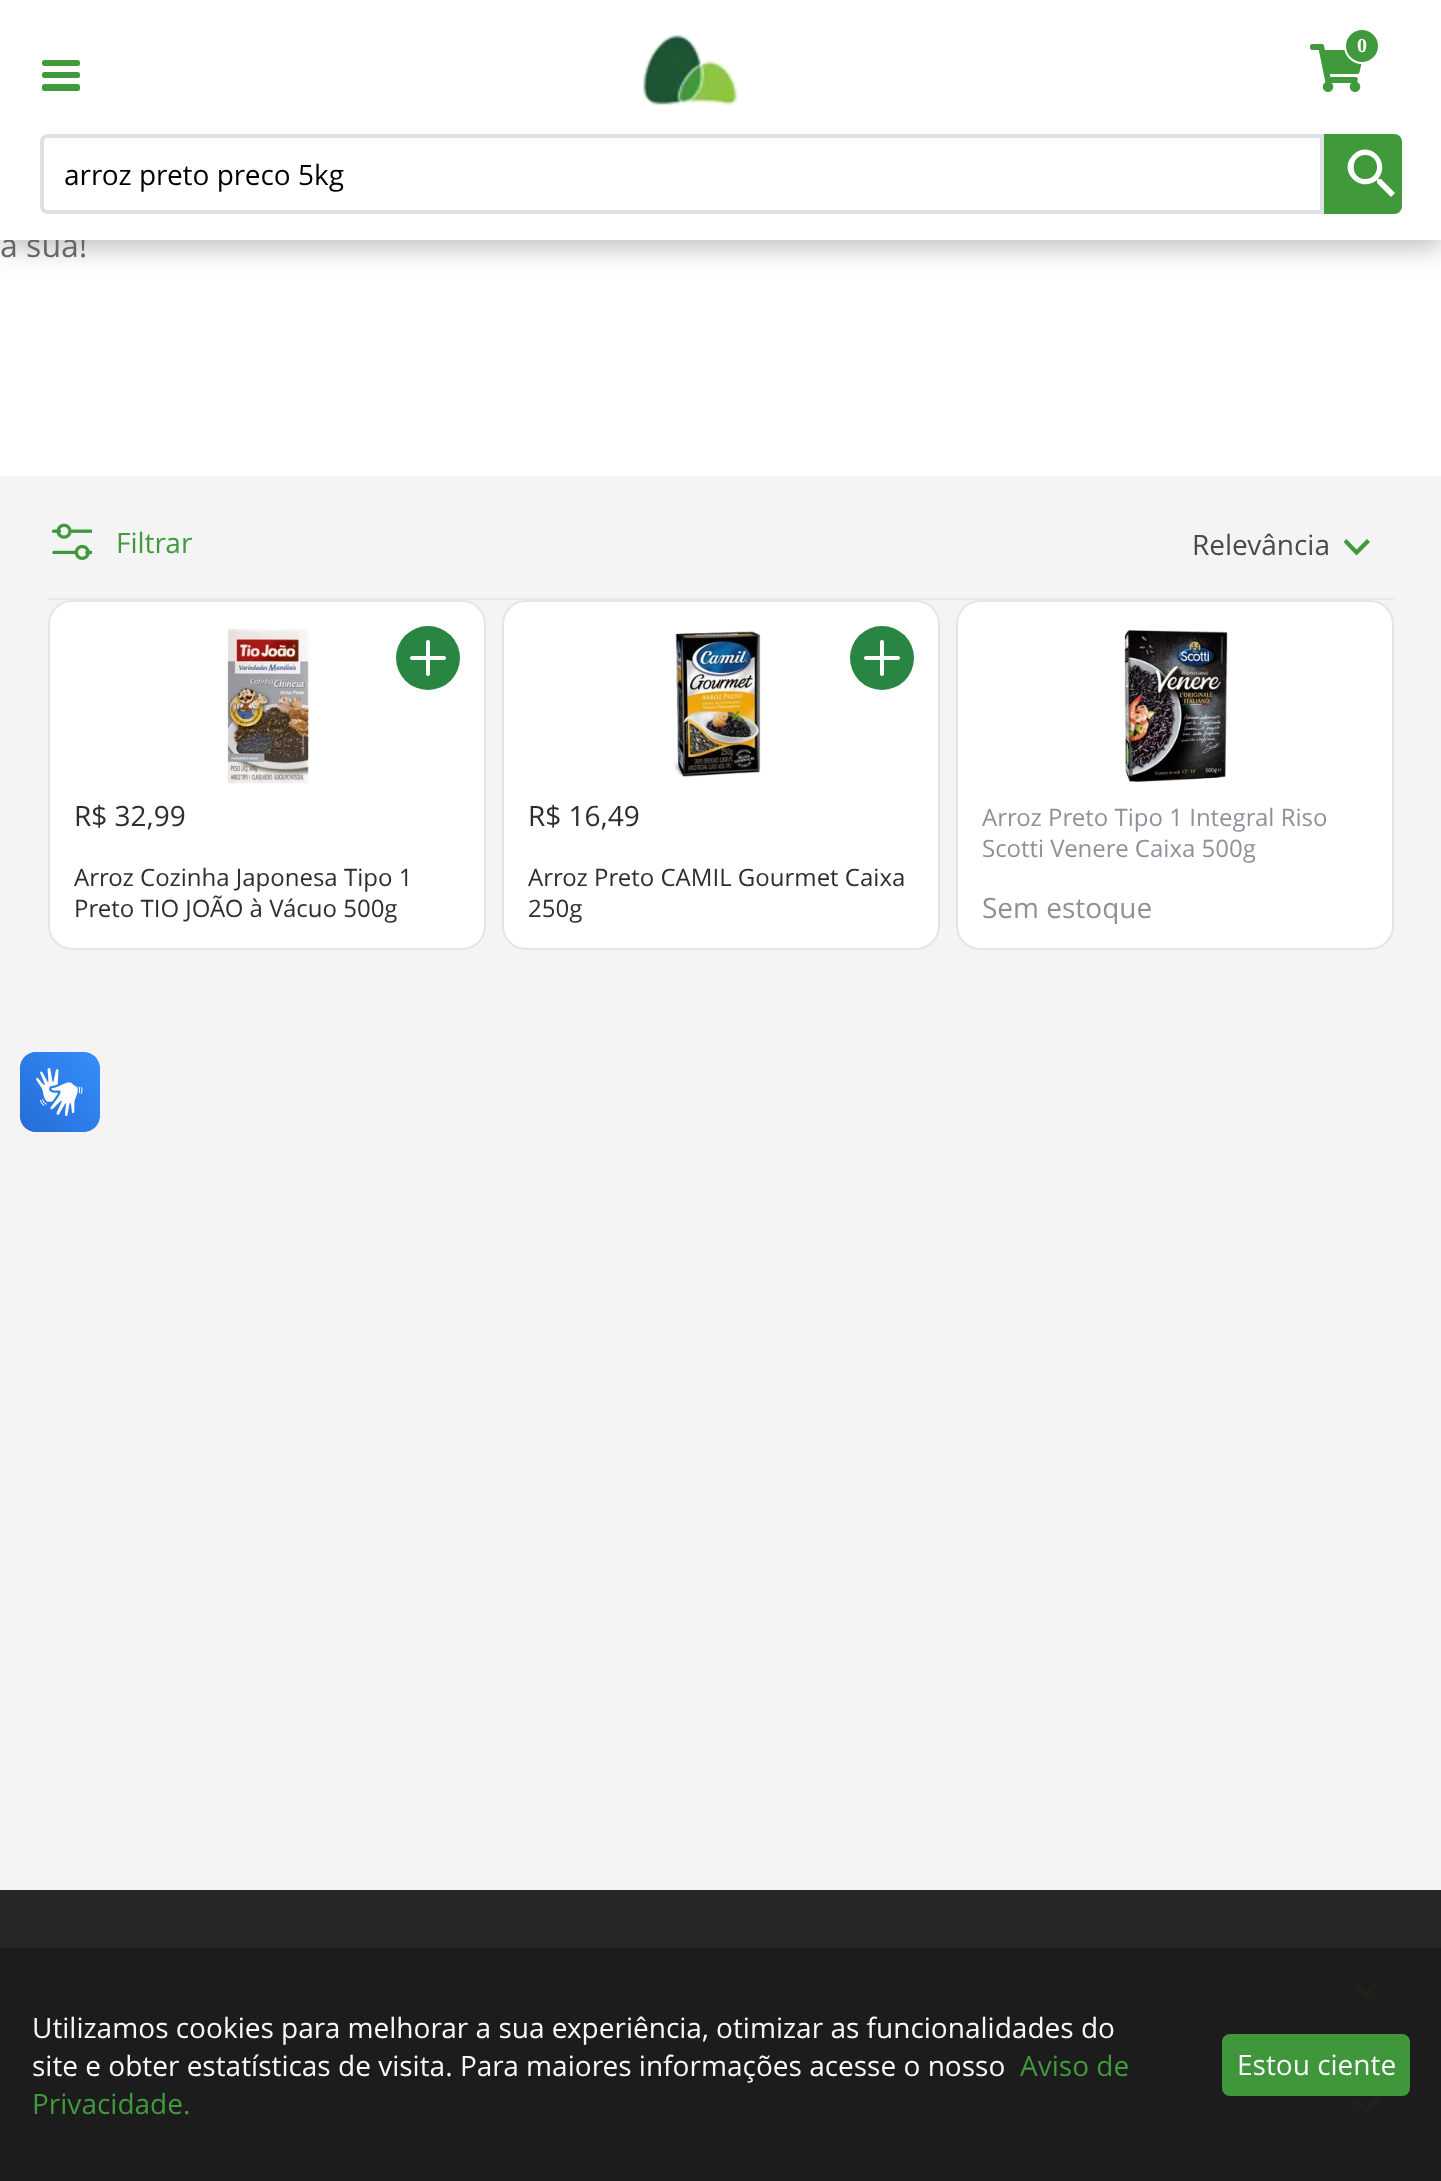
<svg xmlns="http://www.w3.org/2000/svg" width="1441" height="2181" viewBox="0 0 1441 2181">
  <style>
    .t1 { font: 32px Open Sans; fill: #666; }
    .t2 { font: bold 20px Liberation Serif; fill: #fff; }
    .t3 { font: 28px Open Sans; fill: #000; }
    .t4 { font: 28px Open Sans; fill: #409a3c; }
    .t5 { font: 28px Open Sans; fill: #4a4a4a; }
    .t6 { font: 28px 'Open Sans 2'; fill: #2d2e33; }
    .t7 { font: 24px Open Sans; fill: #2d2e33; }
    .t8 { font: 24px Open Sans; fill: #8e9199; }
    .t9 { font: 28px 'Open Sans 2'; fill: #8e9199; }
    .t10 { font: 28px Open Sans; fill: #f8f8f8; }
  </style>
  <defs>
    <clipPath id="clip1"><rect x="982" y="802" width="386" height="122"/></clipPath>
  </defs>
  <rect width="100%" height="100%" fill="#fff"/>
  <rect x="0" y="6" width="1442" height="240" fill="#4a4a4a66" filter="blur(14px)"/>
  <text x="0" y="257" class="t1">a sua!</text>
  <rect x="0" y="0" width="1441" height="240" fill="#fff"/>
  <image x="642" y="33" width="96" height="73" href="images/1.png"/>
  <image x="1310" y="44" width="52" height="48" href="images/2.png"/>
  <circle cx="1362" cy="46" r="17" fill="#409a3c" stroke="#fff" stroke-width="2"/>
  <text x="1357" y="52" class="t2">0</text>
  <rect x="42" y="72" width="38" height="6" rx="2.5" fill="#409a3c"/>
  <rect x="42" y="84" width="38" height="7" rx="2.5" fill="#409a3c"/>
  <rect x="42" y="60" width="38" height="6" rx="2.5" fill="#409a3c"/>
  <path d="M48 136H1322V212H48C44.5 212 42 209.5 42 206V142C42 138.5 44.5 136 48 136Z" fill="none" stroke="#dee1e3" stroke-width="4"/>
  <text x="64" y="185" class="t3">arroz preto preco 5kg</text>
  <path d="M1324 134H1394C1398.5 134 1402 137.5 1402 142V206C1402 210.5 1398.5 214 1394 214H1324Z" fill="#409a3c"/>
  <path d="M1381 179H1379H1378C1392 162 1369 139 1353 155C1337 171 1360 194 1377 180V181V183L1391 197L1395 193ZM1365 179C1350 179 1350 155 1365 155C1381 155 1381 179 1365 179" fill="#fff"/>
  <rect x="0" y="476" width="1441" height="1414" fill="#f4f4f4"/>
  <image x="52" y="523" width="40" height="37" href="images/3.png"/>
  <text x="116" y="553" class="t4">Filtrar</text>
  <text x="1192" y="555" class="t5">Relevância</text>
  <path d="M1346.5 539L1356.5 549.5L1367 539L1370 542L1356.5 555.5L1343.5 542Z" fill="#409a3c"/>
  <rect x="48" y="598" width="1346" height="2" fill="#e8e8e8"/>
  <rect x="49" y="601" width="436" height="348" rx="23" fill="#fff" stroke="#e4e5eb" stroke-width="2"/>
  <image x="226" y="629" width="84" height="155" href="images/4.png"/>
  <circle cx="428" cy="658" r="32" fill="#288542"/>
  <image x="410" y="640" width="36" height="36" href="images/5.png"/>
  <text x="74" y="826" class="t6">R$ 32,99</text>
  <text x="74" y="886" class="t7">Arroz Cozinha Japonesa Tipo 1</text>
  <text x="74" y="917" class="t7">Preto TIO JOÃO à Vácuo 500g</text>
  <rect x="503" y="601" width="436" height="348" rx="23" fill="#fff" stroke="#e4e5eb" stroke-width="2"/>
  <image x="673" y="629" width="88" height="148" href="images/6.png"/>
  <circle cx="882" cy="658" r="32" fill="#288542"/>
  <image x="864" y="640" width="36" height="36" href="images/5.png"/>
  <text x="528" y="826" class="t6">R$ 16,49</text>
  <text x="528" y="886" class="t7">Arroz Preto CAMIL Gourmet Caixa</text>
  <text x="528" y="917" class="t7">250g</text>
  <rect x="957" y="601" width="436" height="348" rx="23" fill="#fff" stroke="#e4e5eb" stroke-width="2"/>
  <image x="1124" y="630" width="104" height="152" href="images/7.png"/>
  <text x="982" y="826" class="t8">Arroz Preto Tipo 1 Integral Riso</text>
  <text x="982" y="857" class="t8">Scotti Venere Caixa 500g</text>
  <g clip-path="url(#clip1)">
    <text x="982" y="918" class="t9">Sem estoque</text>
  </g>
  <rect x="0" y="1890" width="1441" height="58" fill="#262626"/>
  <rect x="0" y="1948" width="1441" height="233" fill="#1c1c1c"/>
  <image x="1352" y="1981" width="28" height="18" href="images/8.png"/>
  <image x="1352" y="2097" width="28" height="18" href="images/8.png"/>
  <image x="20" y="1052" width="80" height="80" href="images/9.png"/>
  <image x="20" y="1052" width="80" height="80" href="images/10.png"/>
  <text x="32" y="2038" class="t10">Utilizamos cookies para melhorar a sua experiência, otimizar as funcionalidades do</text>
  <text x="32" y="2076" class="t10">site e obter estatísticas de visita. Para maiores informações acesse o nosso</text>
  <text x="1020" y="2076" class="t4">Aviso de</text>
  <text x="32" y="2114" class="t4">Privacidade.</text>
  <rect x="1222" y="2034" width="188" height="62" rx="8" fill="#3f963b"/>
  <text x="1237" y="2075" class="t10">Estou ciente</text>
</svg>
